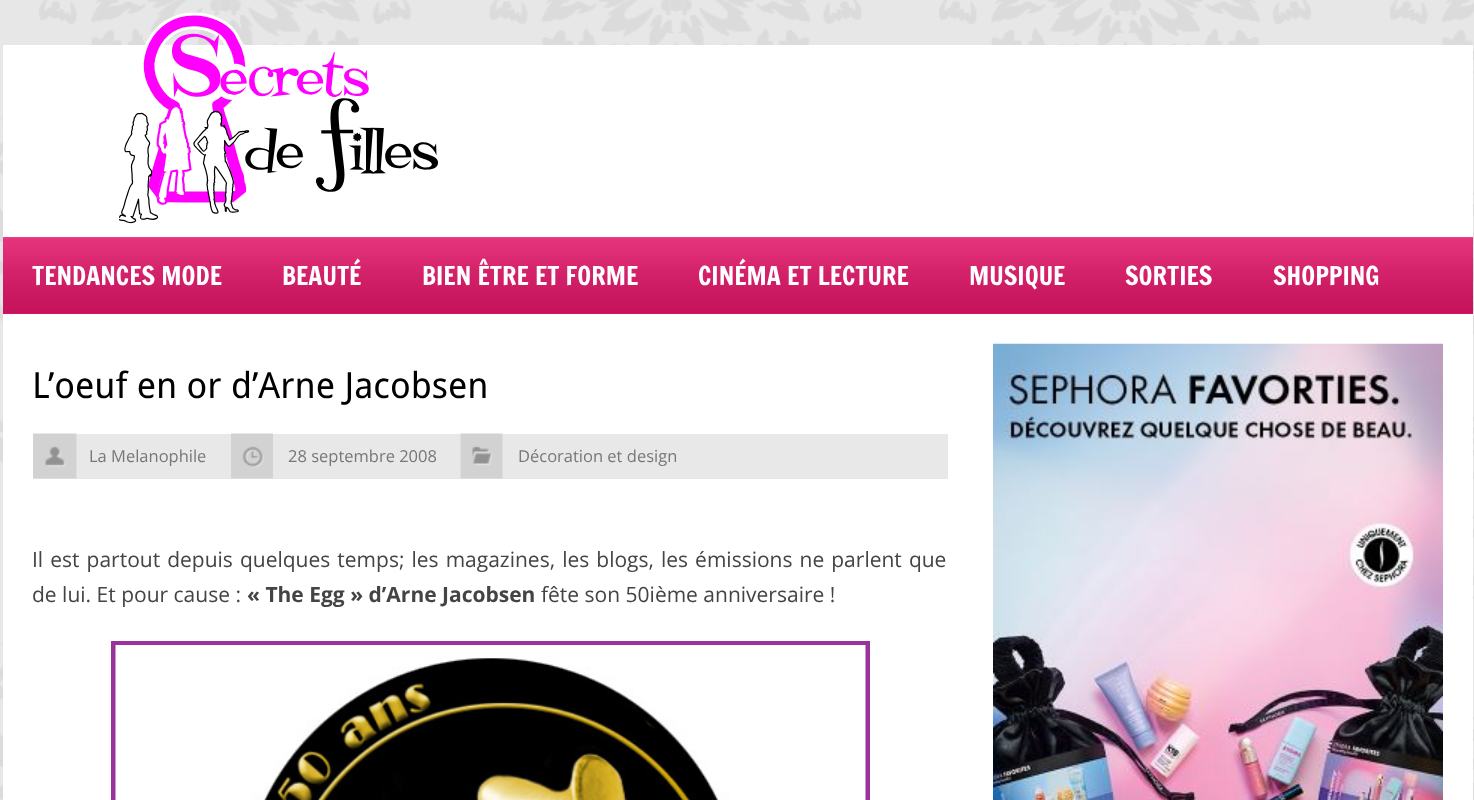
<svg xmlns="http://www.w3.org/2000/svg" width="1474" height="800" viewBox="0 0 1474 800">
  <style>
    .t1 { font: 25.5px Francois One; fill: #fff; }
    .t2 { font: 36px Droid Sans; fill: #000; }
    .t3 { font: 16.5px Open Sans; fill: #777; }
    .t4 { font: 21px Open Sans; fill: #444; }
    .t5 { font: bold 21px Open Sans; fill: #444; }
  </style>
  <rect width="100%" height="100%" fill="#e7e7e7"/>
  <image x="0" y="0" width="1474" height="800" href="images/1.png"/>
  <rect x="3" y="45" width="1470" height="192" fill="#fff"/>
  <image x="119" y="12" width="319" height="212" href="images/2.png"/>
  <rect x="3" y="237" width="1470" height="77" fill="#ed0f69"/>
  <image x="3" y="237" width="1470" height="77" href="images/3.png"/>
  <text x="32" y="285" class="t1">TENDANCES MODE</text>
  <text x="282" y="285" class="t1">BEAUTÉ</text>
  <text x="422" y="285" class="t1">BIEN ÊTRE ET FORME</text>
  <text x="698" y="285" class="t1">CINÉMA ET LECTURE</text>
  <text x="969" y="285" class="t1">MUSIQUE</text>
  <text x="1125" y="285" class="t1">SORTIES</text>
  <text x="1273" y="285" class="t1">SHOPPING</text>
  <rect x="3" y="314" width="1470" height="486" fill="#fff"/>
  <text x="32" y="398" class="t2">L’oeuf en or d’Arne Jacobsen</text>
  <rect x="33" y="434" width="915" height="45" fill="#e8e8e8"/>
  <image x="33" y="433" width="44" height="46" href="images/4.png"/>
  <text x="89" y="462" class="t3">La Melanophile</text>
  <image x="231" y="433" width="42" height="46" href="images/5.png"/>
  <text x="288" y="462" class="t3">28 septembre 2008</text>
  <image x="460" y="433" width="43" height="46" href="images/6.png"/>
  <text x="518" y="462" class="t3">Décoration et design</text>
  <text x="32" y="567" word-spacing="1.6" class="t4">Il est partout depuis quelques temps; les magazines, les blogs, les émissions ne parlent que</text>
  <text x="32" y="602" class="t4">de lui. Et pour cause :</text>
  <text x="247" y="602" class="t5">« The Egg » d’Arne Jacobsen</text>
  <text x="541" y="602" class="t4">fête son 50ième anniversaire !</text>
  <rect x="113.5" y="643.5" width="754" height="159" fill="none" stroke="#939" stroke-width="5"/>
  <image x="115" y="645" width="751" height="155" href="images/7.png"/>
  <image x="993" y="343" width="450" height="457" href="images/8.png"/>
</svg>
